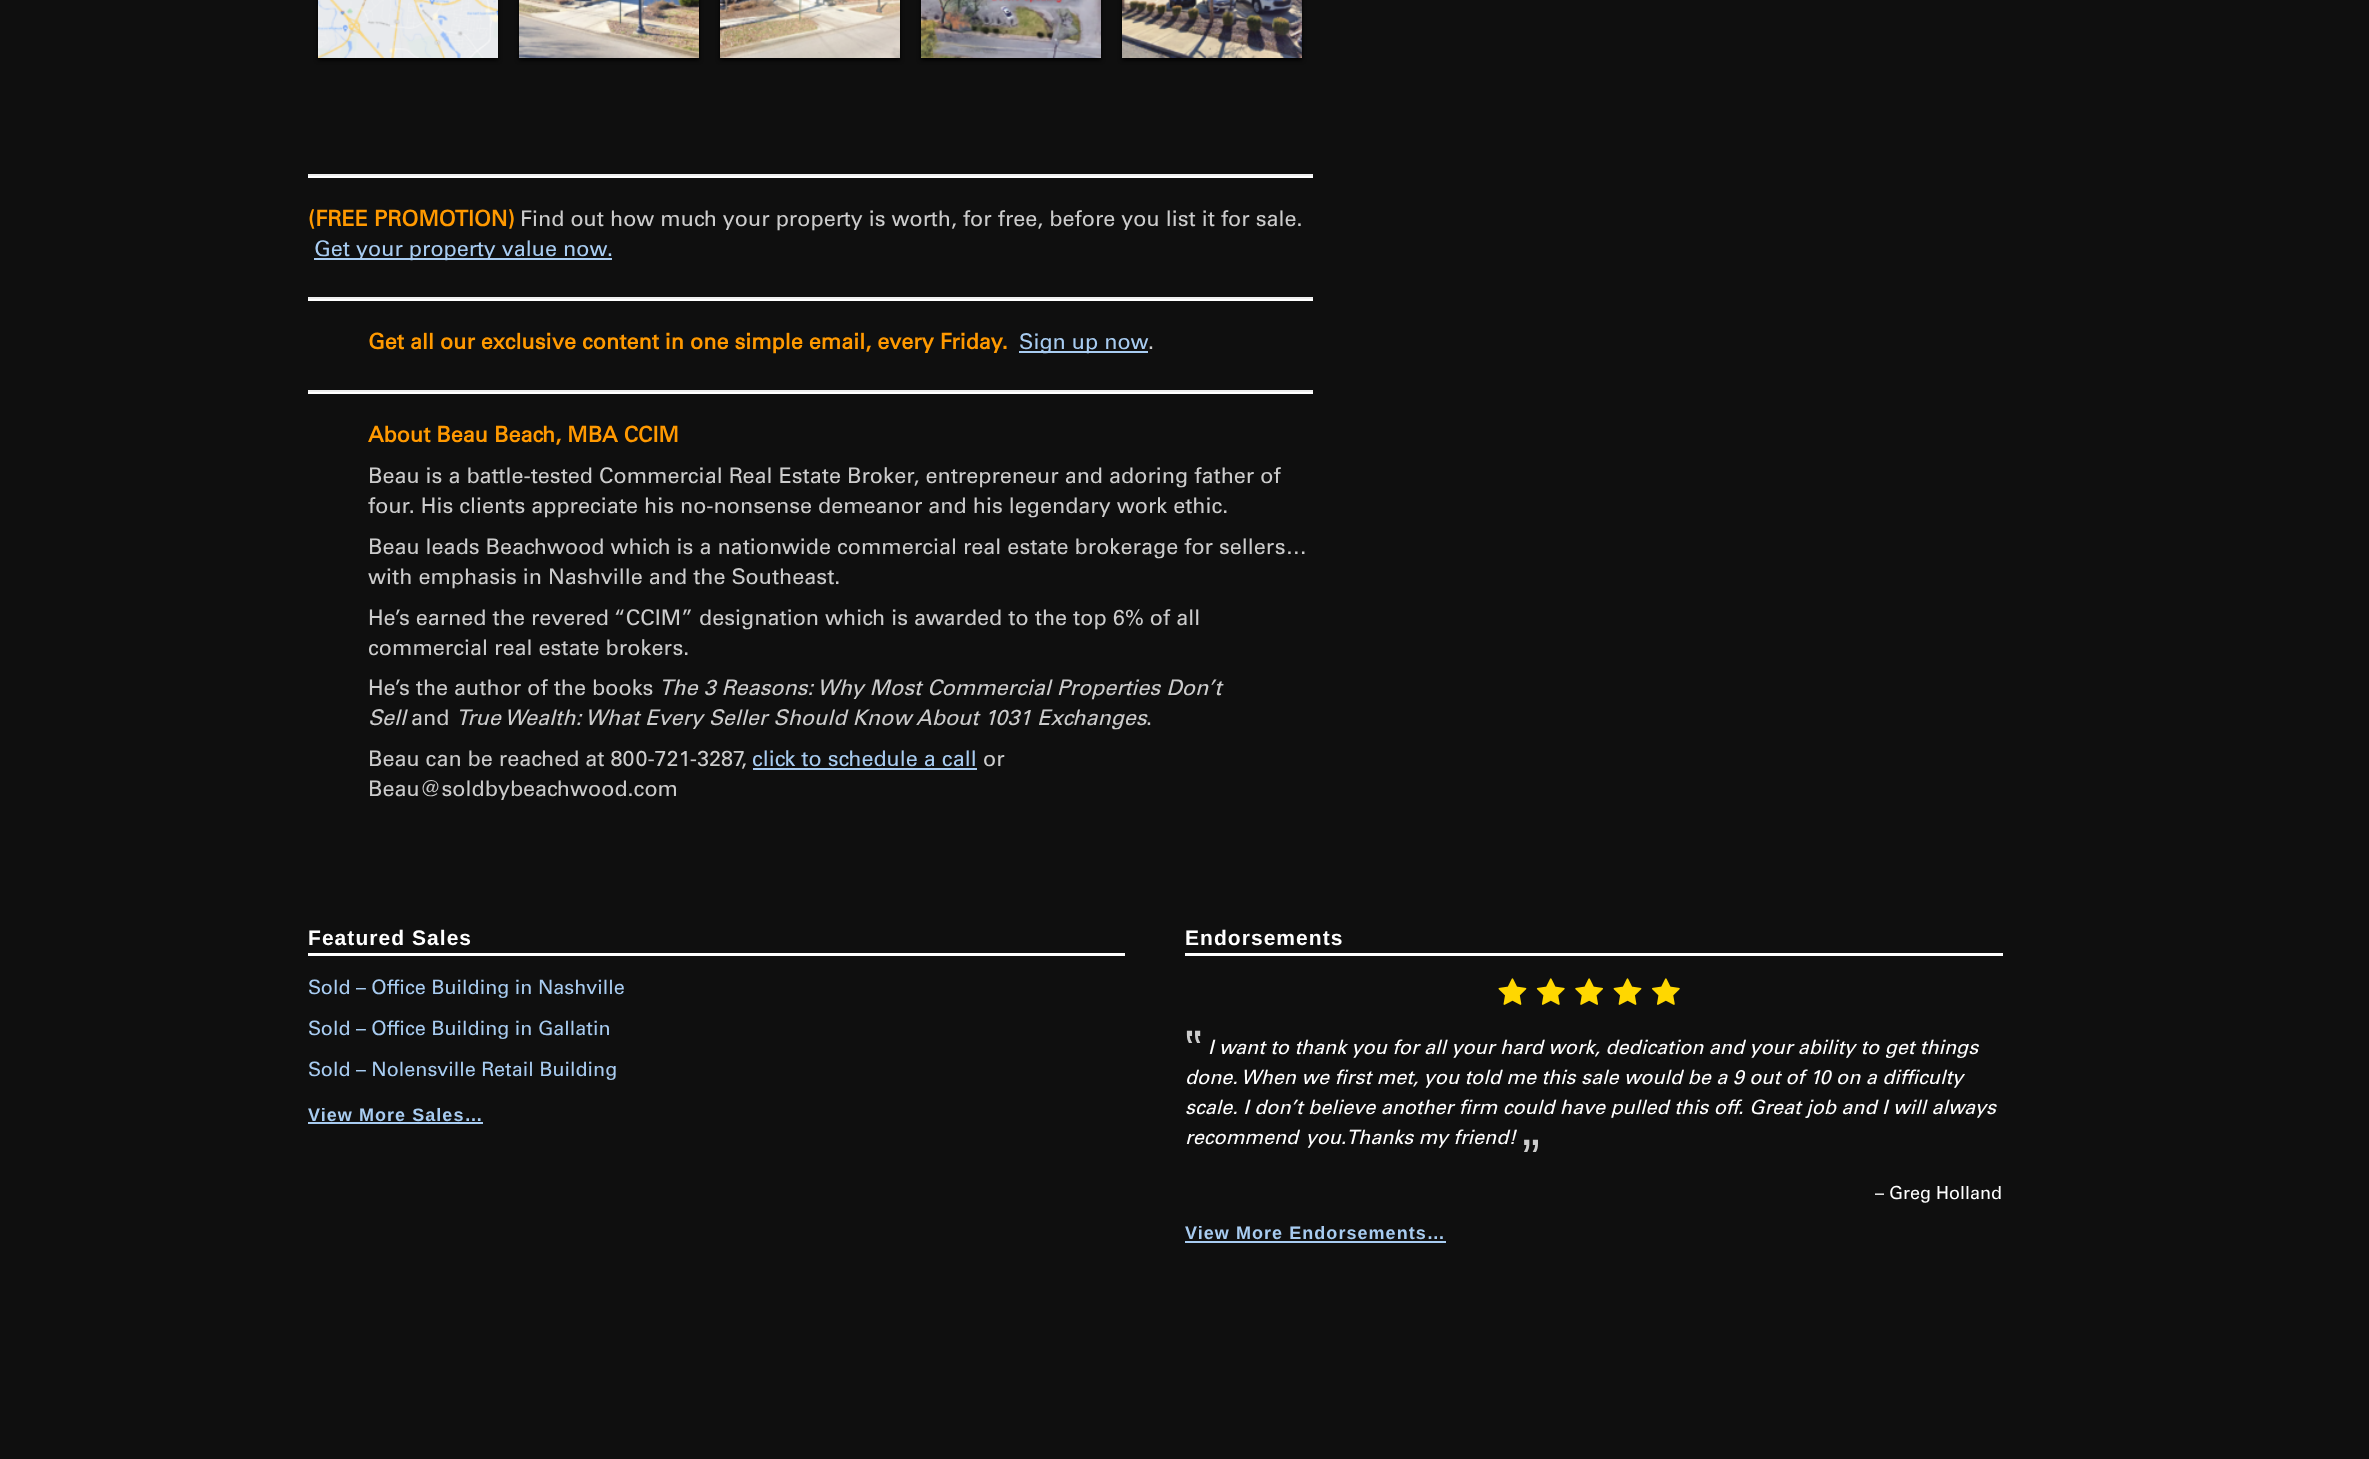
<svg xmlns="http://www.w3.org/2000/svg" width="2369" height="1459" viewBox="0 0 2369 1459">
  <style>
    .t1 { font: bold 21.6px Univers; fill: #f90; }
    .t2 { font: 21.6px Univers; fill: #ccc; }
    .t3 { font: 21.6px Univers; fill: #a8ccf1; }
    .t4 { font: italic 21.6px Univers; fill: #ccc; }
    .t5 { font: bold 21px Liberation Sans; letter-spacing: 1.05px; fill: #fff; }
    .t6 { font: 19.8px Univers; fill: #a8ccf1; }
    .t7 { font: bold 18px Liberation Sans; letter-spacing: 1.05px; fill: #a8ccf1; }
    .t8 { font: 54px Liberation Sans; fill: #ccc; }
    .t9 { font: italic 19.8px Univers; fill: #fff; }
    .t10 { font: 18px Univers; fill: #fff; }
  </style>
  <rect width="100%" height="100%" fill="#0f0f0f"/>
  <rect x="318" y="-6" width="180" height="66" fill="#000" filter="blur(2px)"/>
  <image x="318" y="0" width="180" height="58" href="images/1.png"/>
  <rect x="519" y="-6" width="180" height="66" fill="#000" filter="blur(2px)"/>
  <image x="519" y="0" width="180" height="58" href="images/2.png"/>
  <rect x="720" y="-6" width="180" height="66" fill="#000" filter="blur(2px)"/>
  <image x="720" y="0" width="180" height="58" href="images/3.png"/>
  <rect x="921" y="-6" width="180" height="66" fill="#000" filter="blur(2px)"/>
  <image x="921" y="0" width="180" height="58" href="images/4.png"/>
  <rect x="1122" y="-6" width="180" height="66" fill="#000" filter="blur(2px)"/>
  <image x="1122" y="0" width="180" height="58" href="images/5.png"/>
  <rect x="308" y="174" width="1005" height="2" fill="#eee"/>
  <rect x="308" y="176" width="1005" height="2" fill="#fff"/>
  <text x="308" y="226" class="t1">(FREE PROMOTION)</text>
  <text x="520" y="226" class="t2">Find out how much your property is worth, for free, before you list it for sale.</text>
  <rect x="314" y="258" width="298" height="2" fill="#a8ccf1"/>
  <text x="314" y="256" class="t3">Get your property value now.</text>
  <rect x="308" y="297" width="1005" height="2" fill="#eee"/>
  <rect x="308" y="299" width="1005" height="2" fill="#fff"/>
  <text x="368" y="349" class="t1">Get all our exclusive content in one simple email, every Friday.</text>
  <rect x="1019" y="351" width="129" height="2" fill="#a8ccf1"/>
  <text x="1019" y="349" class="t3">Sign up now</text>
  <text x="1148" y="349" class="t2">.</text>
  <rect x="308" y="390" width="1005" height="2" fill="#eee"/>
  <rect x="308" y="392" width="1005" height="2" fill="#fff"/>
  <text x="368" y="442" class="t1">About Beau Beach, MBA CCIM</text>
  <text x="368" y="483" class="t2">Beau is a battle-tested Commercial Real Estate Broker, entrepreneur and adoring father of</text>
  <text x="368" y="513" class="t2">four. His clients appreciate his no-nonsense demeanor and his legendary work ethic.</text>
  <text x="368" y="554" class="t2">Beau leads Beachwood which is a nationwide commercial real estate brokerage for sellers…</text>
  <text x="368" y="584" class="t2">with emphasis in Nashville and the Southeast.</text>
  <text x="368" y="625" class="t2">He’s earned the revered “CCIM” designation which is awarded to the top 6% of all</text>
  <text x="368" y="655" class="t2">commercial real estate brokers.</text>
  <text x="368" y="695" class="t2">He’s the author of the books</text>
  <text x="659" y="695" class="t4">The 3 Reasons: Why Most Commercial Properties Don’t</text>
  <text x="368" y="725" class="t4">Sell</text>
  <text x="411" y="725" class="t2">and</text>
  <text x="456" y="725" class="t4">True Wealth: What Every Seller Should Know About 1031 Exchanges</text>
  <text x="1146" y="725" class="t2">.</text>
  <text x="368" y="766" class="t2">Beau can be reached at 800-721-3287,</text>
  <text x="752" y="766" class="t3">click to schedule a call</text>
  <rect x="753" y="768" width="224" height="2" fill="#a8ccf1"/>
  <text x="983" y="766" class="t2">or</text>
  <text x="368" y="796" class="t2">Beau@soldbybeachwood.com</text>
  <rect x="308" y="953" width="817" height="3" fill="#fff"/>
  <text x="308" y="945" class="t5">Featured Sales</text>
  <text x="308" y="994" class="t6">Sold – Office Building in Nashville</text>
  <text x="308" y="1035" class="t6">Sold – Office Building in Gallatin</text>
  <text x="308" y="1076" class="t6">Sold – Nolensville Retail Building</text>
  <text x="308" y="1121" class="t7">View More Sales…</text>
  <rect x="308" y="1122" width="175" height="2" fill="#a8ccf1"/>
  <rect x="1185" y="953" width="818" height="3" fill="#fff"/>
  <text x="1185" y="945" class="t5">Endorsements</text>
  <image x="1498" y="978" width="182" height="27" href="images/6.png"/>
  <text x="1185" y="1068" class="t8">‟</text>
  <text x="1208" y="1054" class="t9">I want to thank you for all your hard work, dedication and your ability to get things</text>
  <text x="1185" y="1084" class="t9">done.</text>
  <text x="1241" y="1084" class="t9">When we first met, you told me this sale would be a 9 out of 10 on a difficulty</text>
  <text x="1185" y="1114" class="t9">scale. I don’t believe another firm could have pulled this off. Great job and I will always</text>
  <text x="1185" y="1144" word-spacing="2" class="t9">recommend you.</text>
  <text x="1346" y="1144" class="t9">Thanks my friend!</text>
  <text x="1522" y="1177" class="t8">”</text>
  <text x="1875" y="1199" class="t10">– Greg Holland</text>
  <text x="1185" y="1239" class="t7">View More Endorsements…</text>
  <rect x="1185" y="1241" width="261" height="2" fill="#a8ccf1"/>
</svg>
